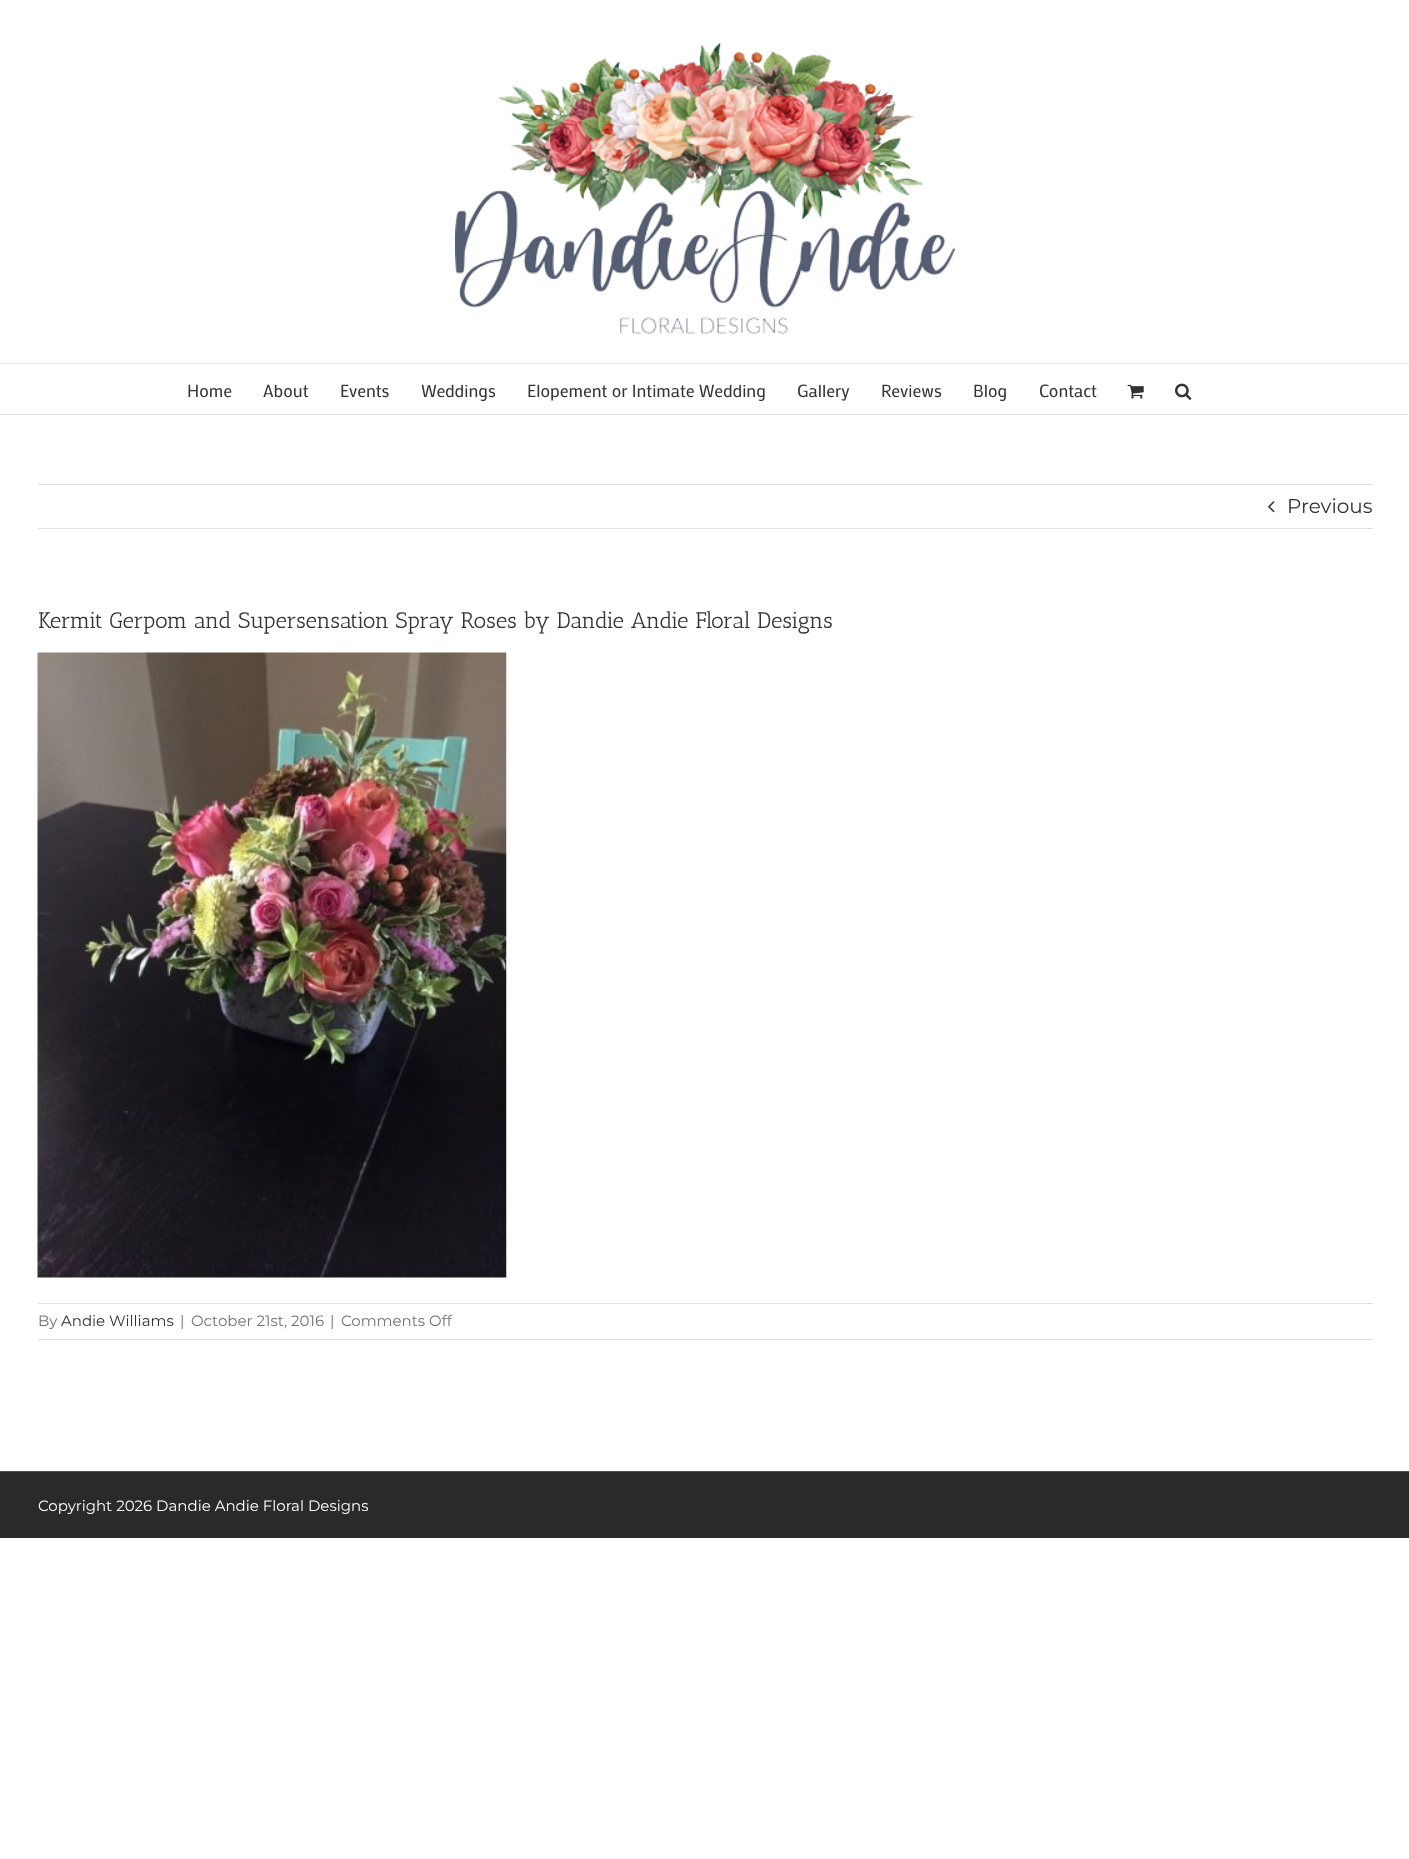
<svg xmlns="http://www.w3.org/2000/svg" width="1409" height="1859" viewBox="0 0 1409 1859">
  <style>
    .t1 { font: 17.5px Mako; fill: #333; }
    .t2 { font: 20px Montserrat; fill: #333; }
    .t3 { font: 22.5px Antic Slab; fill: #333; }
    .t4 { font: 15px Montserrat; fill: #747474; }
    .t5 { font: 15px Montserrat; fill: #333; }
    .t6 { font: 15px Montserrat; fill: #fff; }
  </style>
  <rect width="100%" height="100%" fill="#fff"/>
  <rect x="0" y="363" width="1409" height="1" fill="#e5e5e5"/>
  <image x="455" y="42" width="500" height="292" href="images/1.png"/>
  <rect x="0" y="414" width="1409" height="1" fill="#e5e5e5"/>
  <text x="187" y="397" class="t1">Home</text>
  <text x="263" y="397" class="t1">About</text>
  <text x="340" y="397" class="t1">Events</text>
  <text x="421" y="397" class="t1">Weddings</text>
  <text x="527" y="397" class="t1">Elopement or Intimate Wedding</text>
  <text x="797" y="397" class="t1">Gallery</text>
  <text x="881" y="397" class="t1">Reviews</text>
  <text x="973" y="397" class="t1">Blog</text>
  <text x="1039" y="397" class="t1">Contact</text>
  <image x="1127" y="384" width="17" height="15" href="images/2.png"/>
  <image x="1175" y="383" width="17" height="17" href="images/3.png"/>
  <rect x="38" y="484" width="1335" height="1" fill="#e0dede"/>
  <rect x="38" y="528" width="1335" height="1" fill="#e0dede"/>
  <image x="1268" y="501" width="7" height="12" href="images/4.png"/>
  <text x="1287" y="513" class="t2">Previous</text>
  <text x="38" y="628" class="t3">Kermit Gerpom and Supersensation Spray Roses by Dandie Andie Floral Designs</text>
  <image x="37" y="652" width="470" height="626" href="images/5.png"/>
  <rect x="38" y="1303" width="1335" height="1" fill="#e0dede"/>
  <rect x="38" y="1339" width="1335" height="1" fill="#e0dede"/>
  <text x="38" y="1326" class="t4">By</text>
  <text x="61" y="1326" class="t5">Andie Williams</text>
  <text x="180" y="1326" class="t4">|</text>
  <text x="191" y="1326" class="t4">October 21st, 2016</text>
  <text x="330" y="1326" class="t4">|</text>
  <text x="341" y="1326" class="t4">Comments Off</text>
  <rect x="0" y="1472" width="1409" height="66" fill="#282a2b"/>
  <rect x="0" y="1471" width="1409" height="1" fill="#4b4c4d"/>
  <text x="38" y="1511" class="t6">Copyright 2026 Dandie Andie Floral Designs</text>
</svg>
